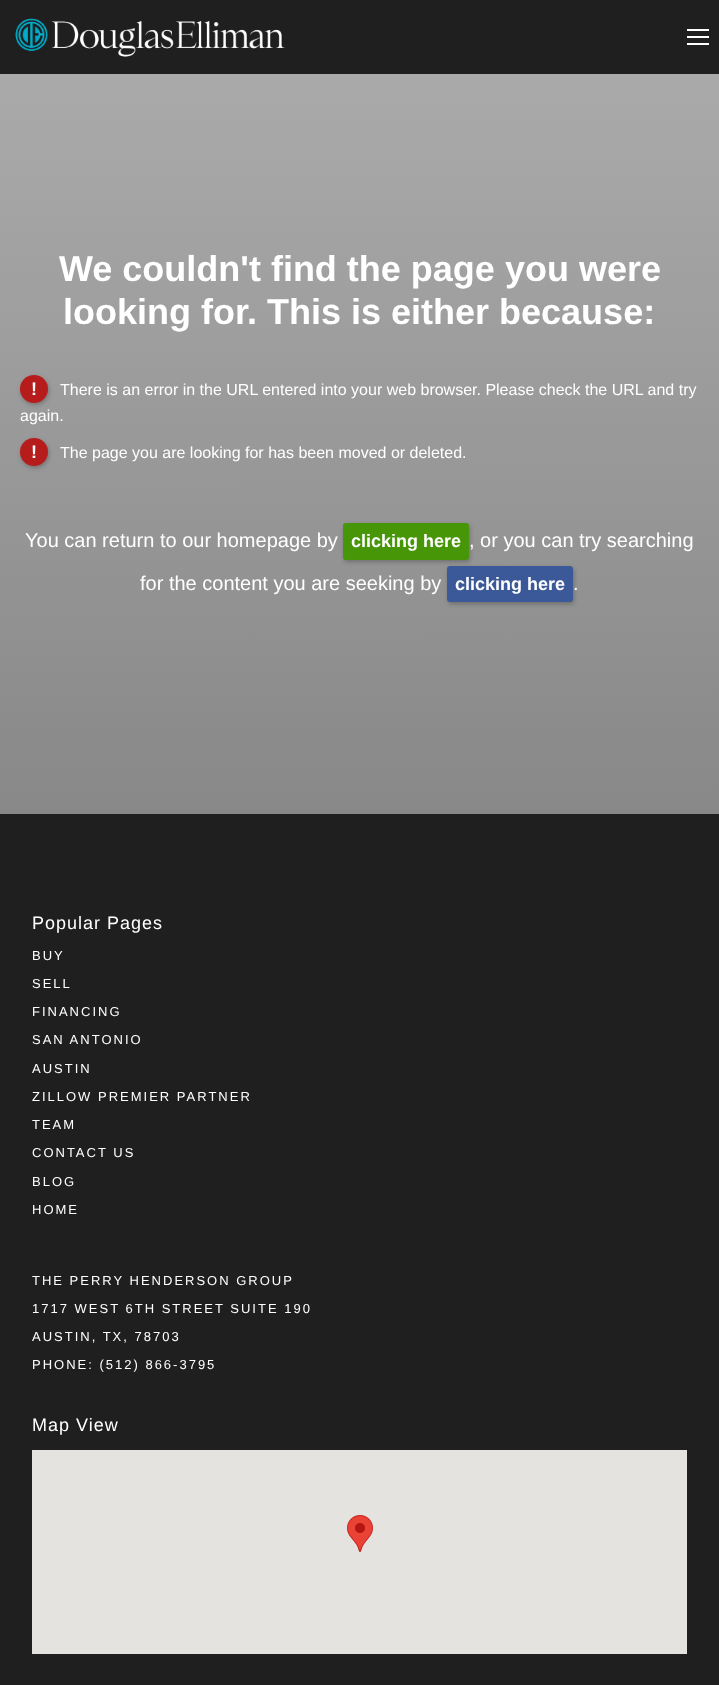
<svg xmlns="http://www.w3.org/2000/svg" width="719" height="1685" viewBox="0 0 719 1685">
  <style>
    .t1 { font: bold 36px Liberation Sans; fill: #fff; }
    .t2 { font: bold 18px Liberation Sans; fill: #fff; }
    .t3 { font: 16px Liberation Sans; fill: #fff; }
    .t4 { font: 20px Liberation Sans; fill: #fff; }
    .t5 { font: 18px Liberation Sans; letter-spacing: 1px; fill: #fff; }
    .t6 { font: 13px Liberation Sans; letter-spacing: 2px; fill: #fff; }
  </style>
  <defs>
    <linearGradient id="g1" gradientUnits="userSpaceOnUse" x1="359" y1="74" x2="360" y2="814"><stop offset="0" stop-color="#aaa"/><stop offset="1" stop-color="#888"/></linearGradient>
  </defs>
  <rect width="100%" height="100%" fill="#fff"/>
  <rect x="0" y="0" width="719" height="74" fill="#1f1f1f"/>
  <image x="15" y="18" width="270" height="39" href="images/1.png"/>
  <rect x="687" y="29" width="22" height="2" fill="#fff"/>
  <rect x="687" y="36" width="22" height="2" fill="#fff"/>
  <rect x="687" y="43" width="22" height="2" fill="#fff"/>
  <rect x="0" y="74" width="719" height="740" fill="url(#g1)"/>
  <text x="59" y="281" class="t1">We couldn't find the page you were</text>
  <text x="63" y="324" class="t1">looking for. This is either because:</text>
  <rect x="21" y="377" width="28" height="28" rx="14" fill="#0000003d" filter="blur(2px)"/>
  <circle cx="34" cy="389" r="14" fill="#b71c1c"/>
  <text x="31" y="395" class="t2">!</text>
  <text x="60" y="395" class="t3">There is an error in the URL entered into your web browser. Please check the URL and try</text>
  <text x="20" y="421" class="t3">again.</text>
  <rect x="21" y="440" width="28" height="28" rx="14" fill="#0000003d" filter="blur(2px)"/>
  <circle cx="34" cy="452" r="14" fill="#b71c1c"/>
  <text x="31" y="458" class="t2">!</text>
  <text x="60" y="458" class="t3">The page you are looking for has been moved or deleted.</text>
  <text x="25" y="547" class="t4">You can return to our homepage by</text>
  <rect x="344" y="525" width="126" height="37" rx="3" fill="#0000003d" filter="blur(2px)"/>
  <rect x="343" y="523" width="126" height="37" rx="3" fill="#479607"/>
  <text x="351" y="547" class="t2">clicking here</text>
  <text x="469" y="547" class="t4">, or you can try searching</text>
  <text x="140" y="590" class="t4">for the content you are seeking by</text>
  <rect x="448" y="568" width="126" height="36" rx="3" fill="#0000003d" filter="blur(2px)"/>
  <rect x="447" y="566" width="126" height="36" rx="3" fill="#3b5998"/>
  <text x="455" y="590" class="t2">clicking here</text>
  <text x="573" y="590" class="t4">.</text>
  <rect x="0" y="814" width="719" height="871" fill="#1f1f1f"/>
  <text x="32" y="929" class="t5">Popular Pages</text>
  <text x="32" y="960" class="t6">BUY</text>
  <text x="32" y="988" class="t6">SELL</text>
  <text x="32" y="1016" class="t6">FINANCING</text>
  <text x="32" y="1044" class="t6">SAN ANTONIO</text>
  <text x="32" y="1073" class="t6">AUSTIN</text>
  <text x="32" y="1101" class="t6">ZILLOW PREMIER PARTNER</text>
  <text x="32" y="1129" class="t6">TEAM</text>
  <text x="32" y="1157" class="t6">CONTACT US</text>
  <text x="32" y="1186" class="t6">BLOG</text>
  <text x="32" y="1214" class="t6">HOME</text>
  <text x="32" y="1285" class="t6">THE PERRY HENDERSON GROUP</text>
  <text x="32" y="1313" class="t6">1717 WEST 6TH STREET SUITE 190</text>
  <text x="32" y="1341" class="t6">AUSTIN, TX, 78703</text>
  <text x="32" y="1369" class="t6">PHONE: (512) 866-3795</text>
  <text x="32" y="1431" class="t5">Map View</text>
  <rect x="32" y="1450" width="655" height="204" fill="#e5e3df"/>
  <image x="347" y="1515" width="26" height="37" href="images/2.png"/>
</svg>
